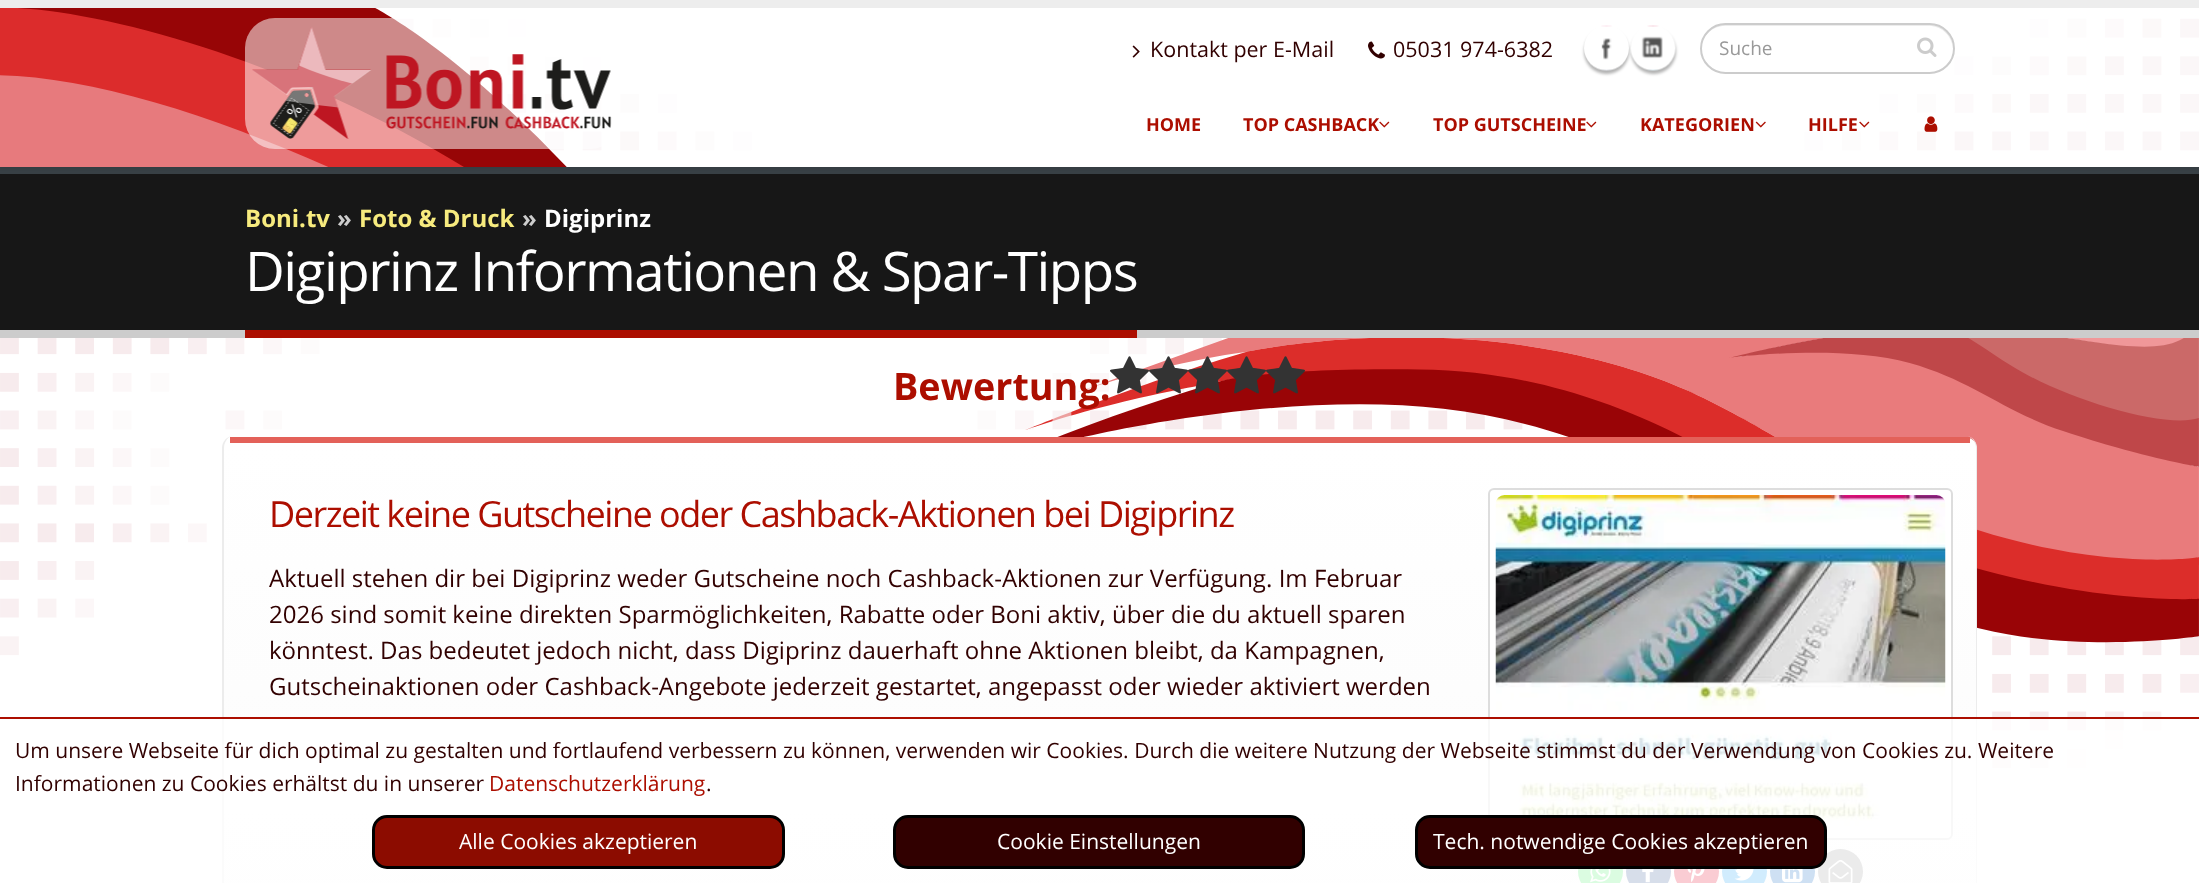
<svg xmlns="http://www.w3.org/2000/svg" width="2199" height="883" viewBox="0 0 2199 883">
  <style>
    .t1 { font: 21.5px Open Sans; fill: #310000; }
    .t2 { font: 19px Open Sans; fill: #999; }
    .t3 { font: bold 18px Open Sans; fill: #ac0e00; }
    .t4 { font: bold 24px Open Sans; fill: #f7eb7e; }
    .t5 { font: bold 24px Open Sans; fill: #ccc; }
    .t6 { font: bold 24px Open Sans; fill: #fff; }
    .t7 { font: 54.6px Open Sans; letter-spacing: -1.5px; fill: #fff; }
    .t8 { font: bold 37.75px Open Sans; fill: #ac0e00; }
    .t9 { font: 36px Open Sans; letter-spacing: -1.5px; fill: #ac0e00; }
    .t10 { font: 24px Open Sans; fill: #310000; }
    .t11 { font: 21px Open Sans; fill: #310000; }
    .t12 { font: 21px Open Sans; fill: #ac0e00; }
    .t13 { font: 21px Open Sans; fill: #fff; }
  </style>
  <defs>
    <clipPath id="clip1"><rect x="222" y="437" width="1755" height="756" rx="12"/></clipPath>
    <linearGradient id="g1" gradientUnits="userSpaceOnUse" x1="1100" y1="436" x2="1100" y2="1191"><stop offset="0.01" stop-color="#fff"/><stop offset="0.98" stop-color="#f9f9f9"/></linearGradient>
  </defs>
  <rect width="100%" height="100%" fill="#fff"/>
  <rect x="0" y="167" width="2199" height="7" fill="#384045"/>
  <rect x="0" y="0" width="2199" height="167" fill="#0000001a" filter="blur(2px)"/>
  <rect x="375" y="8" width="1824" height="159" fill="#fff"/>
  <image x="0" y="8" width="2199" height="159" href="images/1.png"/>
  <rect x="0" y="0" width="2199" height="8" fill="#ededed"/>
  <rect x="245" y="18" width="375" height="131" rx="30" fill="#ffffff87"/>
  <image x="252" y="27" width="360" height="112" href="images/2.png"/>
  <image x="1132" y="45" width="8" height="13" href="images/3.png"/>
  <text x="1150" y="57" class="t1">Kontakt per E-Mail</text>
  <image x="1368" y="41" width="17" height="18" href="images/4.png"/>
  <text x="1393" y="57" class="t1">05031 974-6382</text>
  <rect x="1584" y="29" width="45" height="45" rx="22.5" fill="#0000004d" filter="blur(1.5px)"/>
  <image x="1584" y="25" width="45" height="46" href="images/5.png"/>
  <rect x="1631" y="29" width="45" height="45" rx="22.5" fill="#0000004d" filter="blur(1.5px)"/>
  <image x="1630" y="25" width="46" height="46" href="images/6.png"/>
  <path d="M1725 26H1929C1942 26 1952 36 1953 49V48C1953 35 1942 24 1929 24H1725C1712 24 1701 35 1701 48V49C1702 36 1712 26 1725 26Z" fill="#ececec"/>
  <rect x="1701" y="24" width="253" height="49" rx="24.5" fill="none" stroke="#ccc" stroke-width="2"/>
  <text x="1719" y="55" class="t2">Suche</text>
  <image x="1917" y="37" width="20" height="20" href="images/7.png"/>
  <text x="1146" y="131" class="t3">HOME</text>
  <text x="1243" y="131" class="t3">TOP CASHBACK</text>
  <image x="1379" y="121" width="11" height="7" href="images/8.png"/>
  <text x="1433" y="131" class="t3">TOP GUTSCHEINE</text>
  <image x="1586" y="121" width="11" height="7" href="images/8.png"/>
  <text x="1640" y="131" class="t3">KATEGORIEN</text>
  <image x="1755" y="121" width="11" height="7" href="images/9.png"/>
  <text x="1808" y="131" class="t3">HILFE</text>
  <image x="1859" y="121" width="11" height="7" href="images/8.png"/>
  <image x="1924" y="116" width="14" height="16" href="images/10.png"/>
  <image x="0" y="338" width="2199" height="430" href="images/11.png"/>
  <rect x="0" y="174" width="2199" height="156" fill="#171717"/>
  <rect x="0" y="330" width="2199" height="8" fill="#ccc"/>
  <text x="245" y="227" class="t4">Boni.tv</text>
  <text x="337" y="227" class="t5">»</text>
  <text x="359" y="227" class="t4">Foto &amp; Druck</text>
  <text x="522" y="227" class="t5">»</text>
  <text x="544" y="227" class="t6">Digiprinz</text>
  <rect x="245" y="330" width="892" height="8" fill="#ac0e00"/>
  <text x="245" y="291" class="t7">Digiprinz Informationen &amp; Spar-Tipps</text>
  <text x="893" y="400" class="t8">Bewertung:</text>
  <image x="1110" y="356" width="195" height="38" href="images/12.png"/>
  <g clip-path="url(#clip1)">
    <path d="M234 437H1965C1971.5 437 1977 442.5 1977 449V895H222V449C222 442.5 227.5 437 234 437Z" fill="url(#g1)"/>
  </g>
  <path d="M1972 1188C1975 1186 1976 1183 1976 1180V448C1976 443 1973 438 1968 436C1974 438 1977 443 1977 448V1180C1977 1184 1976 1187 1973 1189Z" fill="#ececec"/>
  <path d="M231 436C227 438 224 443 224 448V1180C224 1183 225 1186 227 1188L226 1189C223 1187 222 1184 222 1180V448C222 443 225 438 231 436Z" fill="#ececec"/>
  <rect x="230" y="437" width="1740" height="6" fill="#e36159"/>
  <text x="269" y="527" class="t9">Derzeit keine Gutscheine oder Cashback-Aktionen bei Digiprinz</text>
  <text x="269" y="587" class="t10">Aktuell stehen dir bei Digiprinz weder Gutscheine noch Cashback-Aktionen zur Verfügung. Im Februar</text>
  <text x="269" y="623" class="t10">2026 sind somit keine direkten Sparmöglichkeiten, Rabatte oder Boni aktiv, über die du aktuell sparen</text>
  <text x="269" y="659" class="t10">könntest. Das bedeutet jedoch nicht, dass Digiprinz dauerhaft ohne Aktionen bleibt, da Kampagnen,</text>
  <text x="269" y="695" class="t10">Gutscheinaktionen oder Cashback-Angebote jederzeit gestartet, angepasst oder wieder aktiviert werden</text>
  <rect x="1489" y="489" width="463" height="350" rx="5" fill="#fff" stroke="#ddd" stroke-width="2"/>
  <image x="1495" y="495" width="451" height="336" href="images/13.png"/>
  <circle cx="1600.5" cy="871.5" r="22.5" fill="#4ded6b"/>
  <image x="1590" y="869" width="21" height="14" href="images/14.png"/>
  <circle cx="1648.5" cy="871.5" r="22.5" fill="#3b5998"/>
  <image x="1642" y="869" width="12" height="14" href="images/15.png"/>
  <circle cx="1696.5" cy="871.5" r="22.5" fill="#e60023"/>
  <image x="1687" y="869" width="18" height="14" href="images/16.png"/>
  <circle cx="1744.5" cy="871.5" r="22.5" fill="#1da1f2"/>
  <image x="1734" y="869" width="20" height="12" href="images/17.png"/>
  <circle cx="1792.5" cy="871.5" r="22.5" fill="#0a66c2"/>
  <image x="1782" y="869" width="21" height="14" href="images/18.png"/>
  <circle cx="1840.5" cy="871.5" r="22.5" fill="#999"/>
  <image x="1828" y="860" width="25" height="23" href="images/19.png"/>
  <rect x="222" y="719" width="1940" height="164" fill="#ffffffcc"/>
  <rect x="0" y="717" width="2199" height="2" fill="#ac0e00"/>
  <text x="15" y="758" class="t11">Um unsere Webseite für dich optimal zu gestalten und fortlaufend verbessern zu können, verwenden wir Cookies. Durch die weitere Nutzung der Webseite stimmst du der Verwendung von Cookies zu. Weitere</text>
  <text x="15" y="791" class="t11">Informationen zu Cookies erhältst du in unserer</text>
  <text x="489" y="791" class="t12">Datenschutzerklärung</text>
  <text x="706" y="791" class="t11">.</text>
  <rect x="373.5" y="816.5" width="410" height="51" rx="13.5" fill="#8c0c00" stroke="#000" stroke-width="3"/>
  <text x="459" y="849" class="t13">Alle Cookies akzeptieren</text>
  <rect x="894.5" y="816.5" width="409" height="51" rx="13.5" fill="#310000" stroke="#000" stroke-width="3"/>
  <text x="997" y="849" class="t13">Cookie Einstellungen</text>
  <rect x="1416.5" y="816.5" width="409" height="51" rx="13.5" fill="#310000" stroke="#000" stroke-width="3"/>
  <text x="1433" y="849" class="t13">Tech. notwendige Cookies akzeptieren</text>
</svg>
